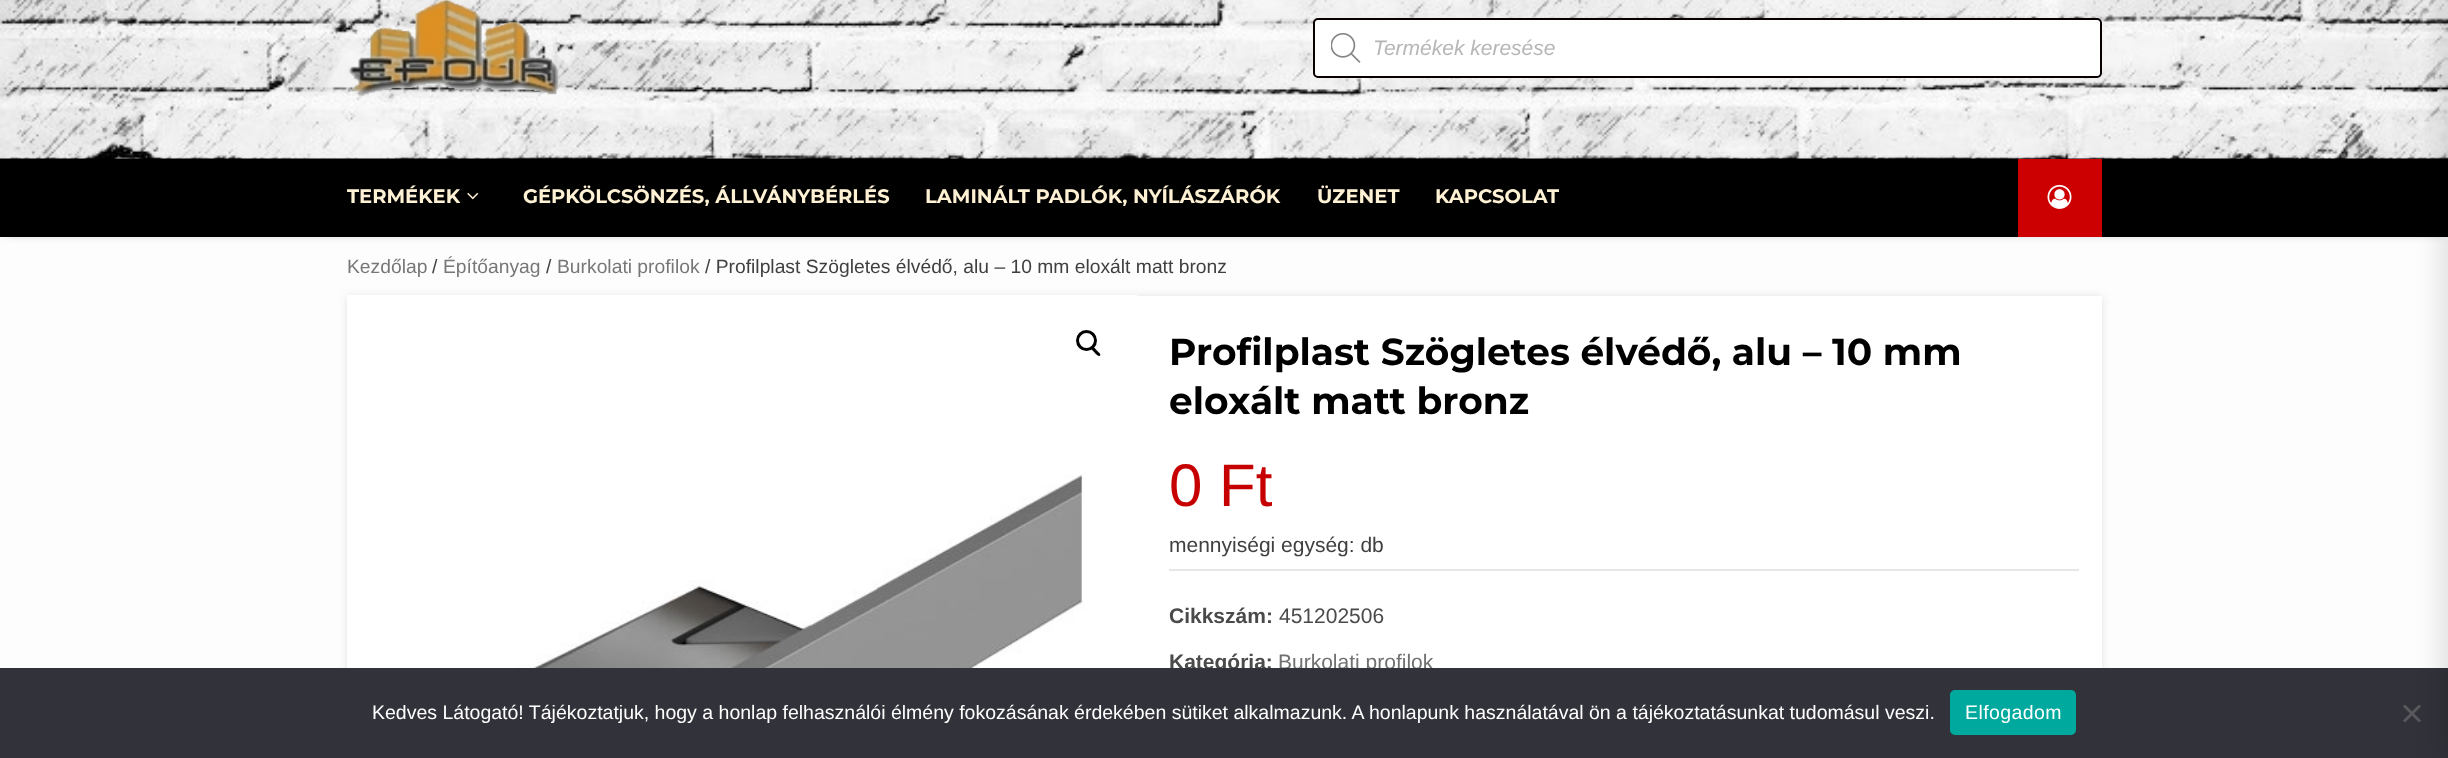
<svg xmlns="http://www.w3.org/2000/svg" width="2448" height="758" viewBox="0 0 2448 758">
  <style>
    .t1 { font: italic 21px Liberation Sans; fill: #b6b6b6; }
    .t2 { font: bold 19.5px Montserrat; fill: #fff1d3; }
    .t3 { font: 19.3px Liberation Sans; fill: #777; }
    .t4 { font: 19.3px Liberation Sans; fill: #404040; }
    .t5 { font: bold 37.5px Montserrat; fill: #000; }
    .t6 { font: 60px Liberation Sans; fill: #c60000; }
    .t7 { font: 21px Liberation Sans; fill: #404040; }
    .t8 { font: bold 21px Liberation Sans; fill: #4a4a4a; }
    .t9 { font: 21px Liberation Sans; fill: #4a4a4a; }
    .t10 { font: 21px Liberation Sans; fill: #707070; }
    .t11 { font: 19.5px Liberation Sans; fill: #fff; }
    .t12 { font: 19.5px Liberation Sans; letter-spacing: 0.4px; fill: #fff; }
  </style>
  <rect width="100%" height="100%" fill="#fdfdfd"/>
  <rect x="0" y="158" width="2448" height="1" fill="#0a0000"/>
  <image x="0" y="0" width="2448" height="159" href="images/1.png"/>
  <image x="349" y="0" width="210" height="96" href="images/2.png"/>
  <rect x="1314" y="19" width="787" height="58" rx="4" fill="#fff" stroke="#0a0000" stroke-width="2"/>
  <image x="1331" y="33" width="30" height="30" href="images/3.png"/>
  <text x="1373" y="55" class="t1">Termékek keresése</text>
  <rect x="6" y="168" width="2436" height="66" fill="#0000004d" filter="blur(4px)"/>
  <rect x="0" y="159" width="2448" height="78" fill="#000"/>
  <text x="347" y="203" class="t2">TERMÉKEK</text>
  <image x="467" y="192" width="12" height="8" href="images/4.png"/>
  <text x="523" y="203" class="t2">GÉPKÖLCSÖNZÉS, ÁLLVÁNYBÉRLÉS</text>
  <text x="925" y="203" class="t2">LAMINÁLT PADLÓK, NYÍLÁSZÁRÓK</text>
  <text x="1317" y="203" class="t2">ÜZENET</text>
  <text x="1435" y="203" class="t2">KAPCSOLAT</text>
  <rect x="2018" y="159" width="84" height="78" fill="#c00"/>
  <image x="2047" y="184" width="25" height="25" href="images/5.png"/>
  <text x="347" y="273" class="t3">Kezdőlap</text>
  <text x="432" y="273" class="t4">/</text>
  <text x="443" y="273" class="t3">Építőanyag</text>
  <text x="546" y="273" class="t4">/</text>
  <text x="557" y="273" class="t3">Burkolati profilok</text>
  <text x="705" y="273" class="t4">/ Profilplast Szögletes élvédő, alu – 10 mm eloxált matt bronz</text>
  <rect x="347" y="296" width="1755" height="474" fill="#0000001a" filter="blur(4px)"/>
  <rect x="1137" y="296" width="965" height="372" fill="#fff"/>
  <image x="347" y="295" width="790" height="373" href="images/6.png"/>
  <circle cx="1086.5" cy="340.5" r="9" fill="none" stroke="#000" stroke-width="3"/>
  <path d="M1091.5 347C1093 345.5 1096 349.5 1097 350.5C1097.5 351.5 1101.5 354 1100 355.5C1098.5 357.5 1095.5 353.5 1094.5 352.5C1094 351.5 1090 349 1091.5 347Z" fill="#000"/>
  <text x="1169" y="365" class="t5">Profilplast Szögletes élvédő, alu – 10 mm</text>
  <text x="1169" y="414" class="t5">eloxált matt bronz</text>
  <text x="1169" y="506" class="t6">0 Ft</text>
  <text x="1169" y="552" class="t7">mennyiségi egység: db</text>
  <rect x="1169" y="569" width="910" height="2" fill="#e6e6e6"/>
  <text x="1169" y="623" class="t8">Cikkszám:</text>
  <text x="1279" y="623" class="t9">451202506</text>
  <text x="1169" y="669" class="t8">Kategória:</text>
  <text x="1278" y="669" class="t10">Burkolati profilok</text>
  <rect x="0" y="668" width="2448" height="90" fill="#32323a"/>
  <path d="M2419 704.5L2421 706.5L2405 722.5L2403 720.5Z" fill="#59595d"/>
  <path d="M2403 706.5L2405 704.5L2421 720.5L2419 722.5Z" fill="#59595d"/>
  <rect x="2438" y="0" width="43" height="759" fill="#0000001a" filter="blur(11px)"/>
  <text x="372" y="719" class="t11">Kedves Látogató! Tájékoztatjuk, hogy a honlap felhasználói élmény fokozásának érdekében sütiket alkalmazunk. A honlapunk használatával ön a tájékoztatásunkat tudomásul veszi.</text>
  <rect x="1950" y="690" width="126" height="45" rx="5" fill="#00a99d"/>
  <text x="1965" y="719" class="t12">Elfogadom</text>
</svg>
